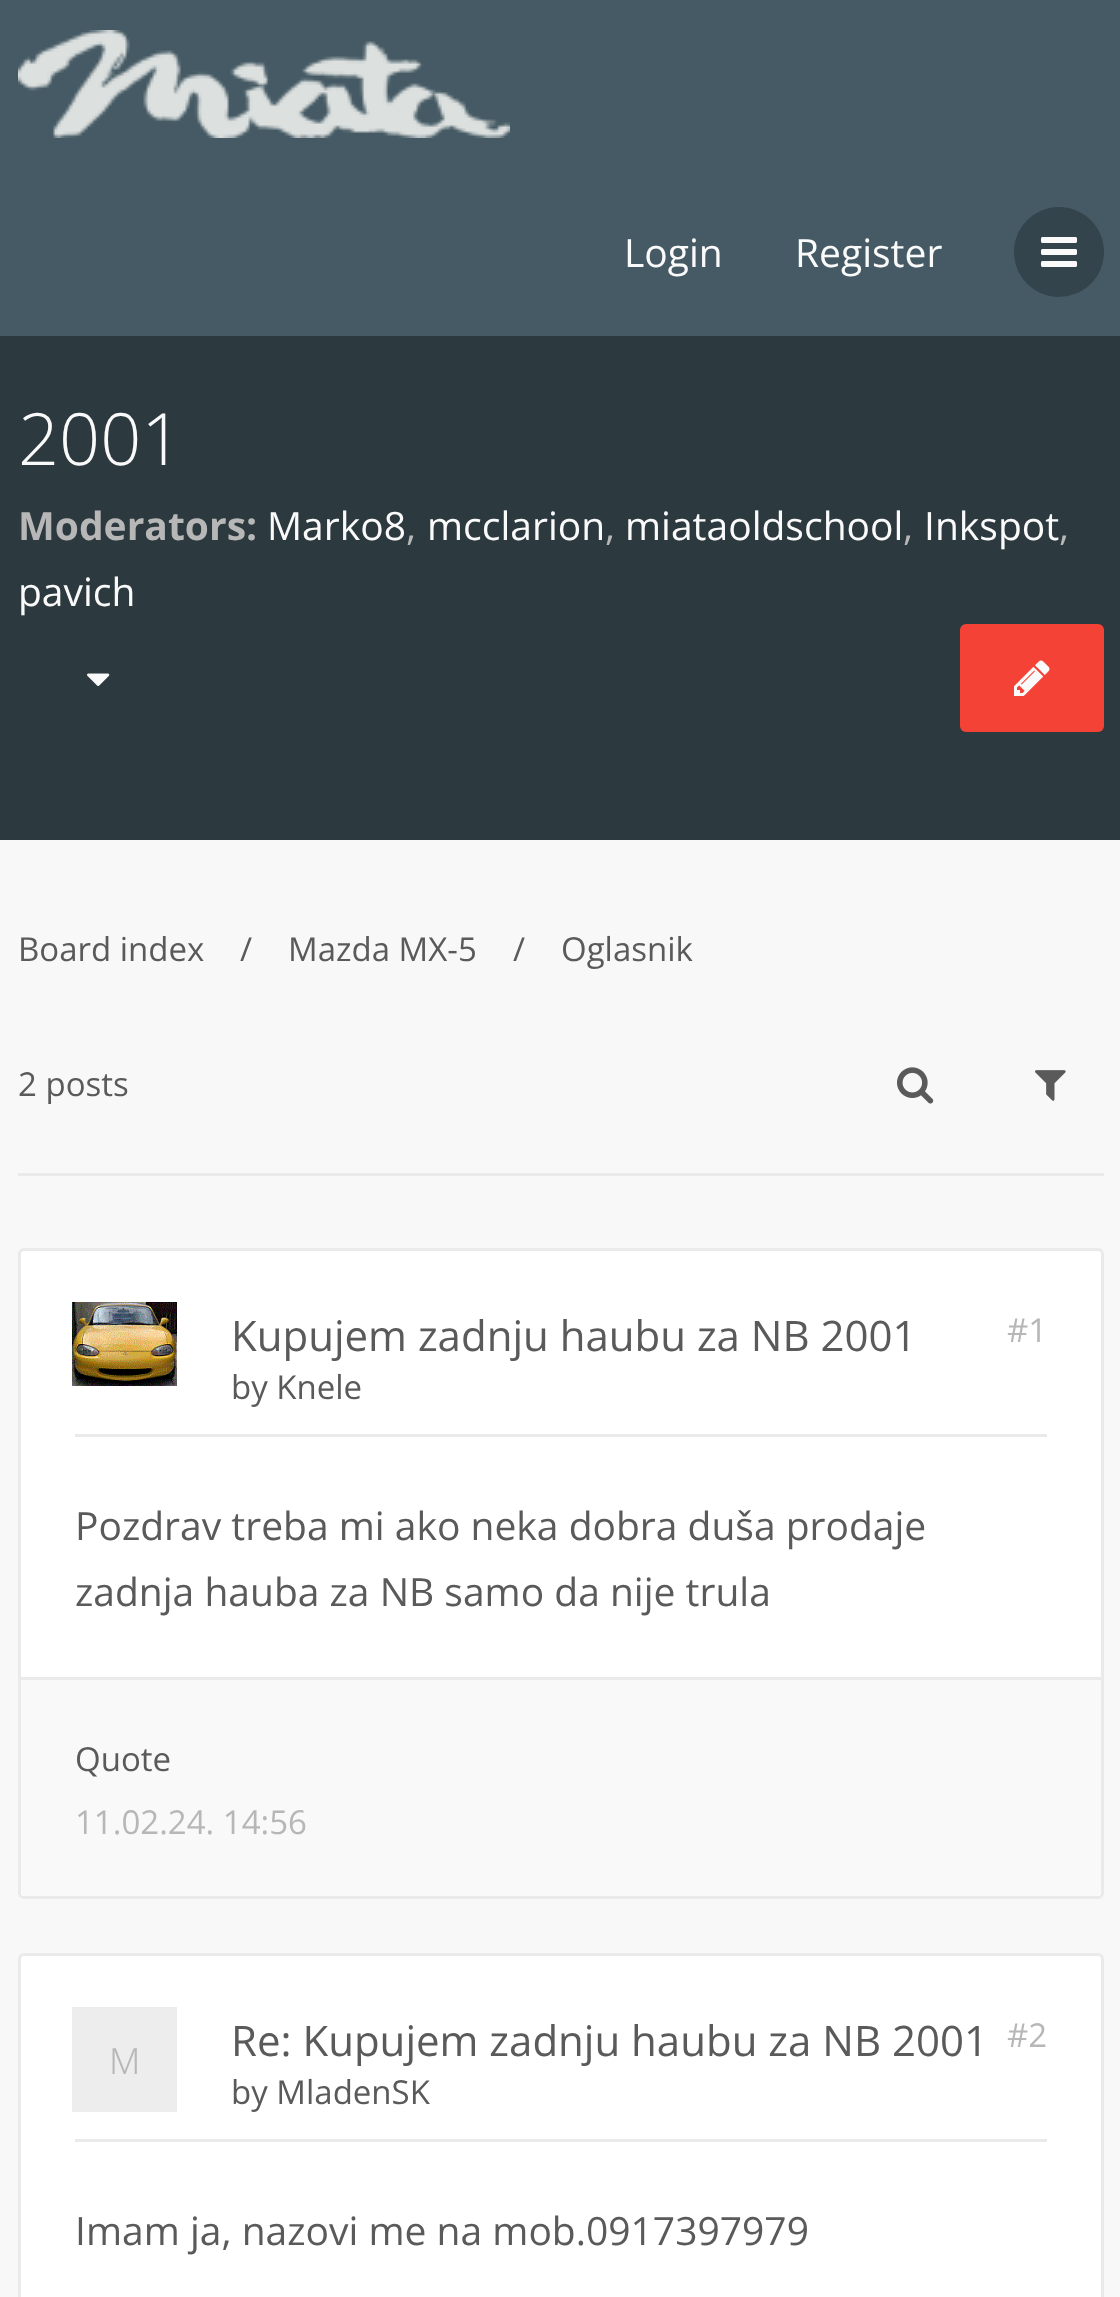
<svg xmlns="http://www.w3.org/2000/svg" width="1120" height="2297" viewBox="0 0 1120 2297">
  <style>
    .t1 { font: 39px Open Sans; fill: #fafafa; }
    .t2 { font: 300 72px Open Sans; fill: #fafafa; }
    .t3 { font: bold 39px Open Sans; fill: #b7b7b7; }
    .t4 { font: 39px Open Sans; fill: #b7b7b7; }
    .t5 { font: 33px Open Sans; fill: #5a5a5a; }
    .t6 { font: 42px Open Sans; fill: #5a5a5a; }
    .t7 { font: 33px Open Sans; fill: #b7b7b7; }
    .t8 { font: 39px Open Sans; fill: #5a5a5a; }
    .t9 { font: 300 36px Noto Sans; fill: #b7b7b7; }
  </style>
  <rect width="100%" height="100%" fill="#f8f8f8"/>
  <rect x="0" y="0" width="1120" height="336" fill="#455a64"/>
  <image x="18" y="30" width="492" height="108" href="images/1.png"/>
  <text x="624" y="267" class="t1">Login</text>
  <text x="795" y="267" class="t1">Register</text>
  <circle cx="1059" cy="252" r="45" fill="#34444c"/>
  <image x="1041" y="237" width="36" height="30" href="images/2.png"/>
  <rect x="0" y="336" width="1120" height="504" fill="#2c393f"/>
  <text x="18" y="465" class="t2">2001</text>
  <text x="18" y="540" class="t3">Moderators:</text>
  <text x="267" y="540" class="t1">Marko8</text>
  <text x="406" y="540" class="t4">,</text>
  <text x="427" y="540" class="t1">mcclarion</text>
  <text x="605" y="540" class="t4">,</text>
  <text x="625" y="540" class="t1">miataoldschool</text>
  <text x="903" y="540" class="t4">,</text>
  <text x="924" y="540" class="t1">Inkspot</text>
  <text x="1059" y="540" class="t4">,</text>
  <text x="18" y="606" class="t1">pavich</text>
  <image x="87" y="673" width="23" height="13" href="images/3.png"/>
  <rect x="960" y="624" width="144" height="108" rx="6" fill="#f44336"/>
  <image x="1014" y="660" width="36" height="36" href="images/4.png"/>
  <text x="18" y="961" class="t5">Board index</text>
  <text x="240" y="961" class="t5">/</text>
  <text x="288" y="961" class="t5">Mazda MX-5</text>
  <text x="513" y="961" class="t5">/</text>
  <text x="561" y="961" class="t5">Oglasnik</text>
  <rect x="18" y="1173" width="1086" height="3" fill="#eaeaea"/>
  <text x="18" y="1096" class="t5">2 posts</text>
  <image x="897" y="1067" width="37" height="37" href="images/5.png"/>
  <image x="1035" y="1070" width="31" height="31" href="images/6.png"/>
  <rect x="19.5" y="1249.5" width="1083" height="648" rx="4.5" fill="#fff" stroke="#eaeaea" stroke-width="3"/>
  <image x="72" y="1302" width="105" height="84" href="images/7.png"/>
  <text x="231" y="1351" class="t6">Kupujem zadnju haubu za NB 2001</text>
  <text x="1007" y="1342" class="t7">#1</text>
  <text x="231" y="1399" class="t5">by Knele</text>
  <rect x="75" y="1434" width="972" height="3" fill="#eaeaea"/>
  <text x="75" y="1540" class="t8">Pozdrav treba mi ako neka dobra duša prodaje</text>
  <text x="75" y="1606" class="t8">zadnja hauba za NB samo da nije trula</text>
  <path d="M21 1680H1101V1890C1101 1893.5 1098.5 1896 1095 1896H27C23.5 1896 21 1893.5 21 1890Z" fill="#f9f9f9"/>
  <rect x="21" y="1677" width="1080" height="3" fill="#eaeaea"/>
  <text x="75" y="1771" class="t5">Quote</text>
  <text x="75" y="1834" class="t7">11.02.24. 14:56</text>
  <rect x="19.5" y="1954.5" width="1083" height="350" rx="4.5" fill="#fff" stroke="#eaeaea" stroke-width="3"/>
  <text x="231" y="2056" class="t6">Re: Kupujem zadnju haubu za NB 2001</text>
  <text x="1007" y="2047" class="t7">#2</text>
  <text x="231" y="2104" class="t5">by MladenSK</text>
  <rect x="75" y="2139" width="972" height="3" fill="#eaeaea"/>
  <text x="75" y="2245" class="t8">Imam ja, nazovi me na mob.0917397979</text>
  <rect x="72" y="2007" width="105" height="105" fill="#ededed"/>
  <text x="109" y="2074" class="t9">M</text>
</svg>
